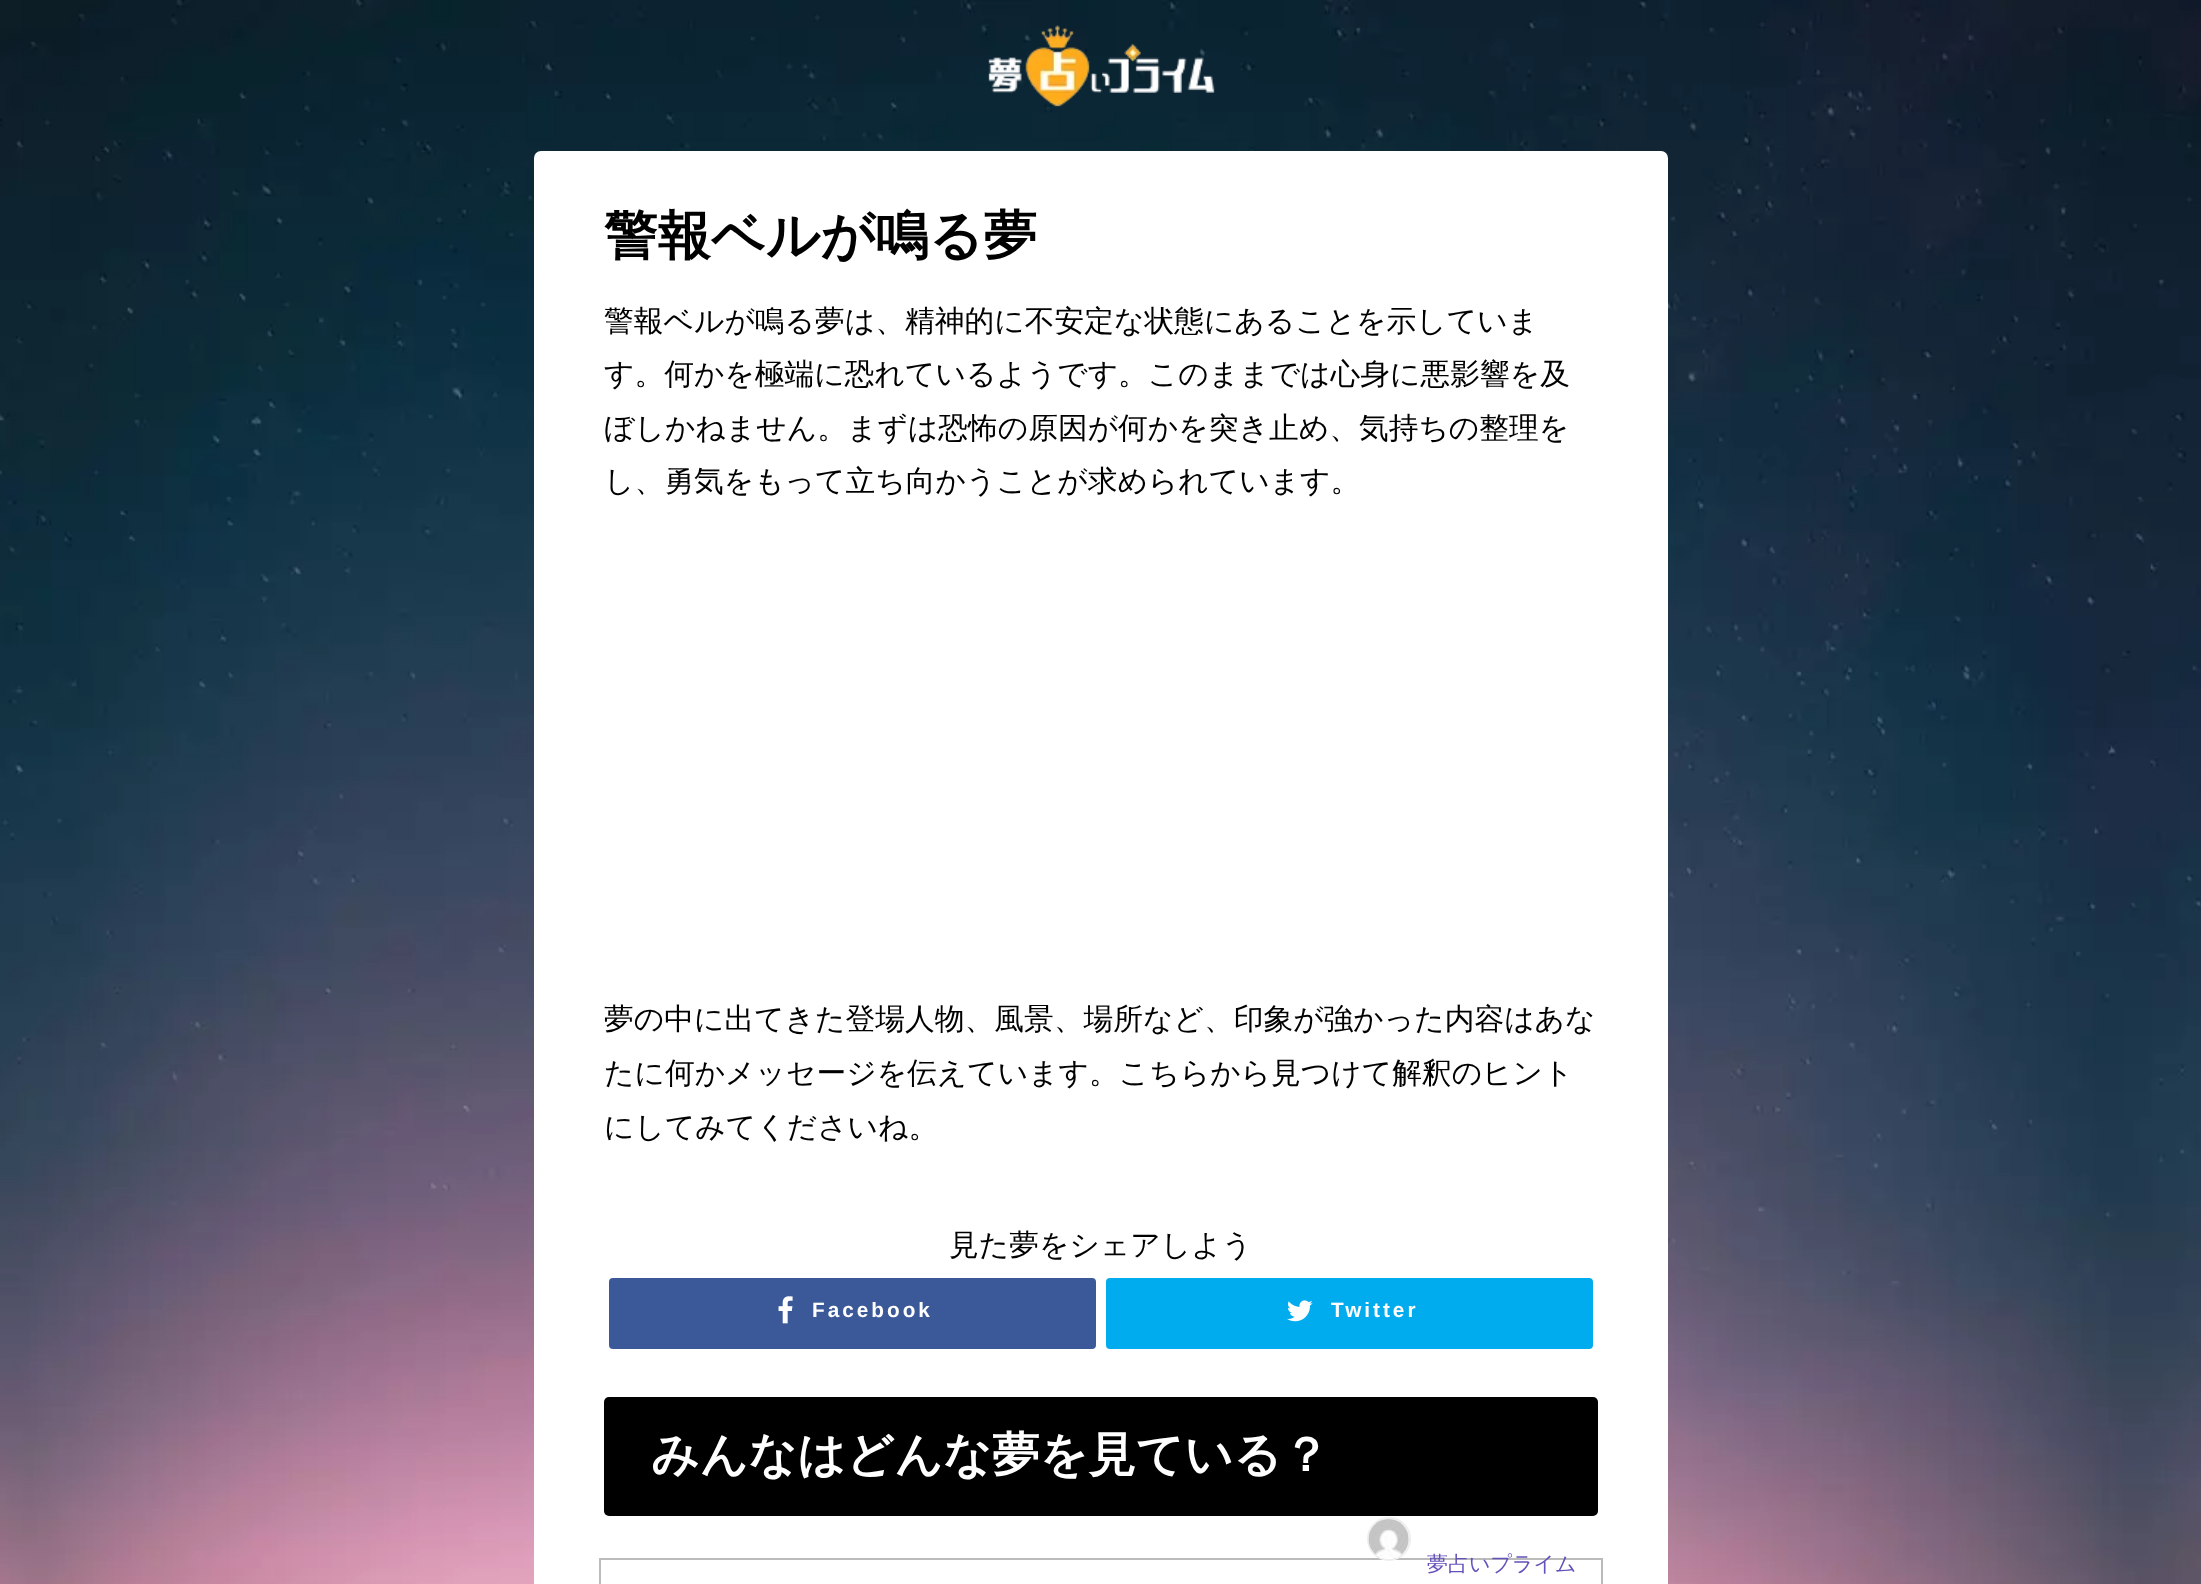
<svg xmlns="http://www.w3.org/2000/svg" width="2201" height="1584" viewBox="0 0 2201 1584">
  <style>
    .t1 { font: bold 53.5px WenQuanYi Zen Hei; fill: #000; }
    .t2 { font: 500 29.75px WenQuanYi Zen Hei; fill: #000; }
    .t3 { font: bold 20.75px Liberation Sans; letter-spacing: 3px; fill: #fff; }
    .t4 { font: bold 47.6px WenQuanYi Zen Hei; fill: #fff; }
    .t5 { font: 500 21px WenQuanYi Zen Hei; fill: #6551ba; }
  </style>
  <rect width="100%" height="100%" fill="#fff"/>
  <image x="0" y="0" width="2201" height="1584" href="images/1.png"/>
  <image x="988" y="25" width="227" height="82" href="images/2.png"/>
  <rect x="534" y="151" width="1134" height="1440" rx="7" fill="#fff"/>
  <text x="604" y="254" class="t1">警報ベルが鳴る夢</text>
  <text x="604" y="331" class="t2">警報ベルが鳴る夢は、精神的に不安定な状態にあることを示していま</text>
  <text x="604" y="384" class="t2">す。何かを極端に恐れているようです。このままでは心身に悪影響を及</text>
  <text x="604" y="438" class="t2">ぼしかねません。まずは恐怖の原因が何かを突き止め、気持ちの整理を</text>
  <text x="604" y="491" class="t2">し、勇気をもって立ち向かうことが求められています。</text>
  <text x="604" y="1029" class="t2">夢の中に出てきた登場人物、風景、場所など、印象が強かった内容はあな</text>
  <text x="604" y="1083" class="t2">たに何かメッセージを伝えています。こちらから見つけて解釈のヒント</text>
  <text x="604" y="1137" class="t2">にしてみてくださいね。</text>
  <text x="949" y="1255" class="t2">見た夢をシェアしよう</text>
  <rect x="611" y="1280" width="483" height="67" rx="2" fill="#3b5998" stroke="#3b5998" stroke-width="4"/>
  <image x="778" y="1296" width="15" height="28" href="images/3.png"/>
  <text x="812" y="1317" class="t3">Facebook</text>
  <rect x="1108" y="1280" width="483" height="67" rx="2" fill="#00acee" stroke="#00acee" stroke-width="4"/>
  <image x="1287" y="1300" width="26" height="22" href="images/4.png"/>
  <text x="1331" y="1317" class="t3">Twitter</text>
  <rect x="604" y="1397" width="994" height="119" rx="5" fill="#000"/>
  <text x="651" y="1471" class="t4">みんなはどんな夢を見ている？</text>
  <rect x="600" y="1559" width="1002" height="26" fill="none" stroke="#bbb" stroke-width="2"/>
  <circle cx="1389" cy="1539" r="21" fill="none" stroke="#eee" stroke-width="2"/>
  <image x="1368" y="1519" width="41" height="40" href="images/5.png"/>
  <text x="1427" y="1571" class="t5">夢占いプライム</text>
</svg>
